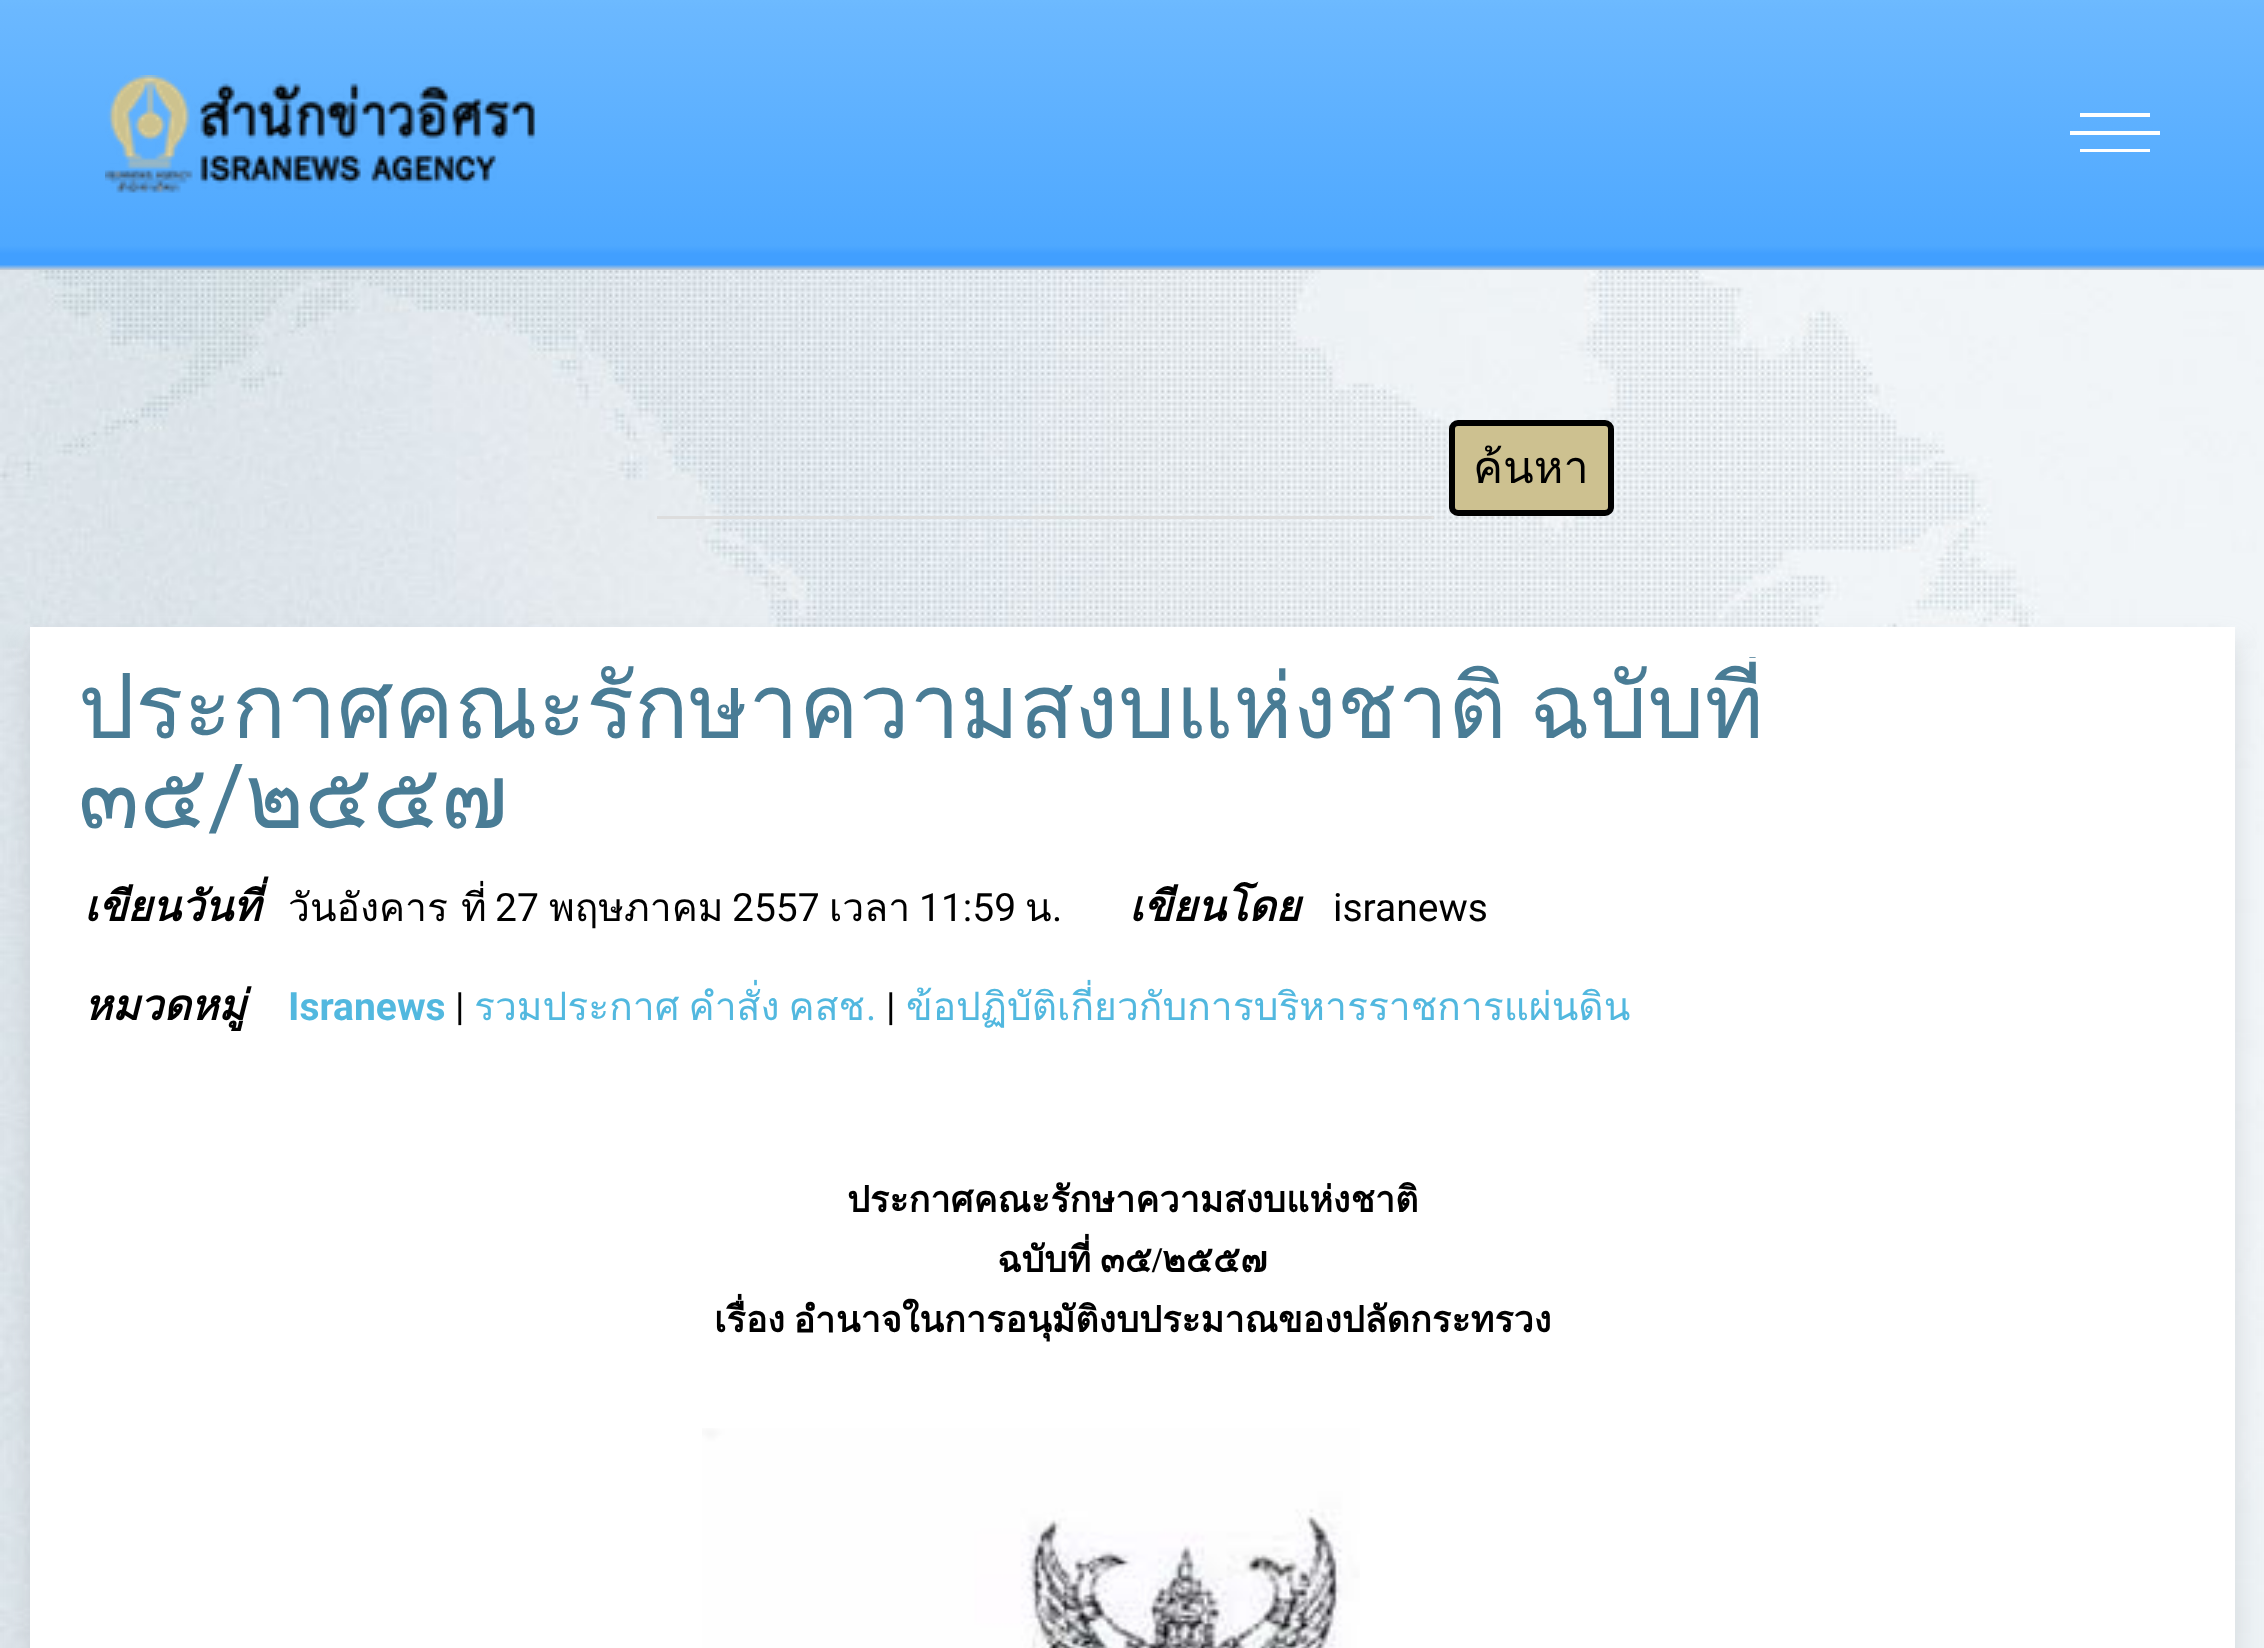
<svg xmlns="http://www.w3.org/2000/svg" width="2264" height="1648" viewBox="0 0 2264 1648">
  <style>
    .t1 { font: 45px Loma; fill: #000; }
    .t2 { font: 90px Loma; fill: #497c95; }
    .t3 { font: 90px Roboto; fill: #497c95; }
    .t4 { font: italic bold 42px Loma; fill: #000; }
    .t5 { font: 39px Loma; fill: #000; }
    .t6 { font: 39px Roboto; fill: #000; }
    .t7 { font: bold 39px Roboto; fill: #52b8df; }
    .t8 { font: 39px Loma; fill: #52b8df; }
    .t9 { font: 39px Roboto; fill: #52b8df; }
    .t10 { font: bold 36px Loma; fill: #000; }
    .t11 { font: bold 36px Liberation Serif; fill: #000; }
  </style>
  <defs>
    <linearGradient id="g1" gradientUnits="userSpaceOnUse" x1="1133" y1="0" x2="1133" y2="270"><stop offset="0" stop-color="#6dbaff"/><stop offset="0.04" stop-color="#6bb8ff"/><stop offset="0.91" stop-color="#4ea8ff"/><stop offset="0.94" stop-color="#419fff"/><stop offset="0.98" stop-color="#419fff"/><stop offset="1" stop-color="#c8cdd3"/></linearGradient>
    <clipPath id="clip1"><rect x="60" y="657" width="2145" height="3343"/></clipPath>
  </defs>
  <rect width="100%" height="100%" fill="#fff"/>
  <image x="0" y="270" width="2264" height="1378" href="images/1.png"/>
  <rect x="0" y="0" width="2264" height="270" fill="url(#g1)"/>
  <image x="105" y="75" width="431" height="118" href="images/2.png"/>
  <path d="M2080 113H2150V117H2080ZM2080 149H2150V152H2080ZM2070 131H2160V135H2070Z" fill="#fff"/>
  <rect x="1452" y="423" width="159" height="90" rx="6" fill="#cdc190" stroke="#000" stroke-width="6"/>
  <text x="1473" y="483" class="t1">ค้นหา</text>
  <rect x="657" y="516" width="777" height="3" fill="#ddd"/>
  <rect x="30" y="642" width="2205" height="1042" fill="#a0a6a859" filter="blur(12px)"/>
  <rect x="30" y="627" width="2205" height="1021" fill="#fff"/>
  <text x="78" y="738" class="t2">ประกาศคณะรักษาความสงบแห่งชาติ</text>
  <g clip-path="url(#clip1)">
    <text x="1529" y="738" class="t2">ฉบับที่</text>
  </g>
  <text x="78" y="828" class="t2">๓๕</text>
  <text x="208" y="828" class="t3">/</text>
  <text x="245" y="828" class="t2">๒๕๕๗</text>
  <text x="84" y="921" class="t4">เขียนวันที่</text>
  <text x="288" y="921" class="t5">วันอังคาร ที่</text>
  <text x="495" y="921" class="t6">27</text>
  <text x="549" y="921" class="t5">พฤษภาคม</text>
  <text x="732" y="921" class="t6">2557</text>
  <text x="829" y="921" class="t5">เวลา</text>
  <text x="919" y="921" class="t6">11:59</text>
  <text x="1025" y="921" class="t5">น</text>
  <text x="1052" y="921" class="t6">.</text>
  <text x="1129" y="921" class="t4">เขียนโดย</text>
  <text x="1333" y="921" class="t6">isranews</text>
  <text x="84" y="1020" class="t4">หมวดหมู่</text>
  <text x="288" y="1020" class="t7">Isranews</text>
  <text x="455" y="1020" class="t6">|</text>
  <text x="474" y="1020" word-spacing="-4" class="t8">รวมประกาศ คำสั่ง คสช</text>
  <text x="886" y="1020" class="t6">|</text>
  <text x="906" y="1020" class="t8">ข้อปฏิบัติเกี่ยวกับการบริหารราชการแผ่นดิน</text>
  <text x="866" y="1020" class="t9">.</text>
  <text x="847" y="1212" class="t10">ประกาศคณะรักษาความสงบแห่งชาติ</text>
  <text x="997" y="1272" word-spacing="-3" class="t10">ฉบับที่ ๓๕</text>
  <text x="1152" y="1272" class="t11">/</text>
  <text x="1162" y="1272" class="t10">๒๕๕๗</text>
  <text x="714" y="1332" word-spacing="-3" class="t10">เรื่อง อำนาจในการอนุมัติงบประมาณของปลัดกระทรวง</text>
  <image x="702" y="1428" width="658" height="220" href="images/3.png"/>
</svg>
